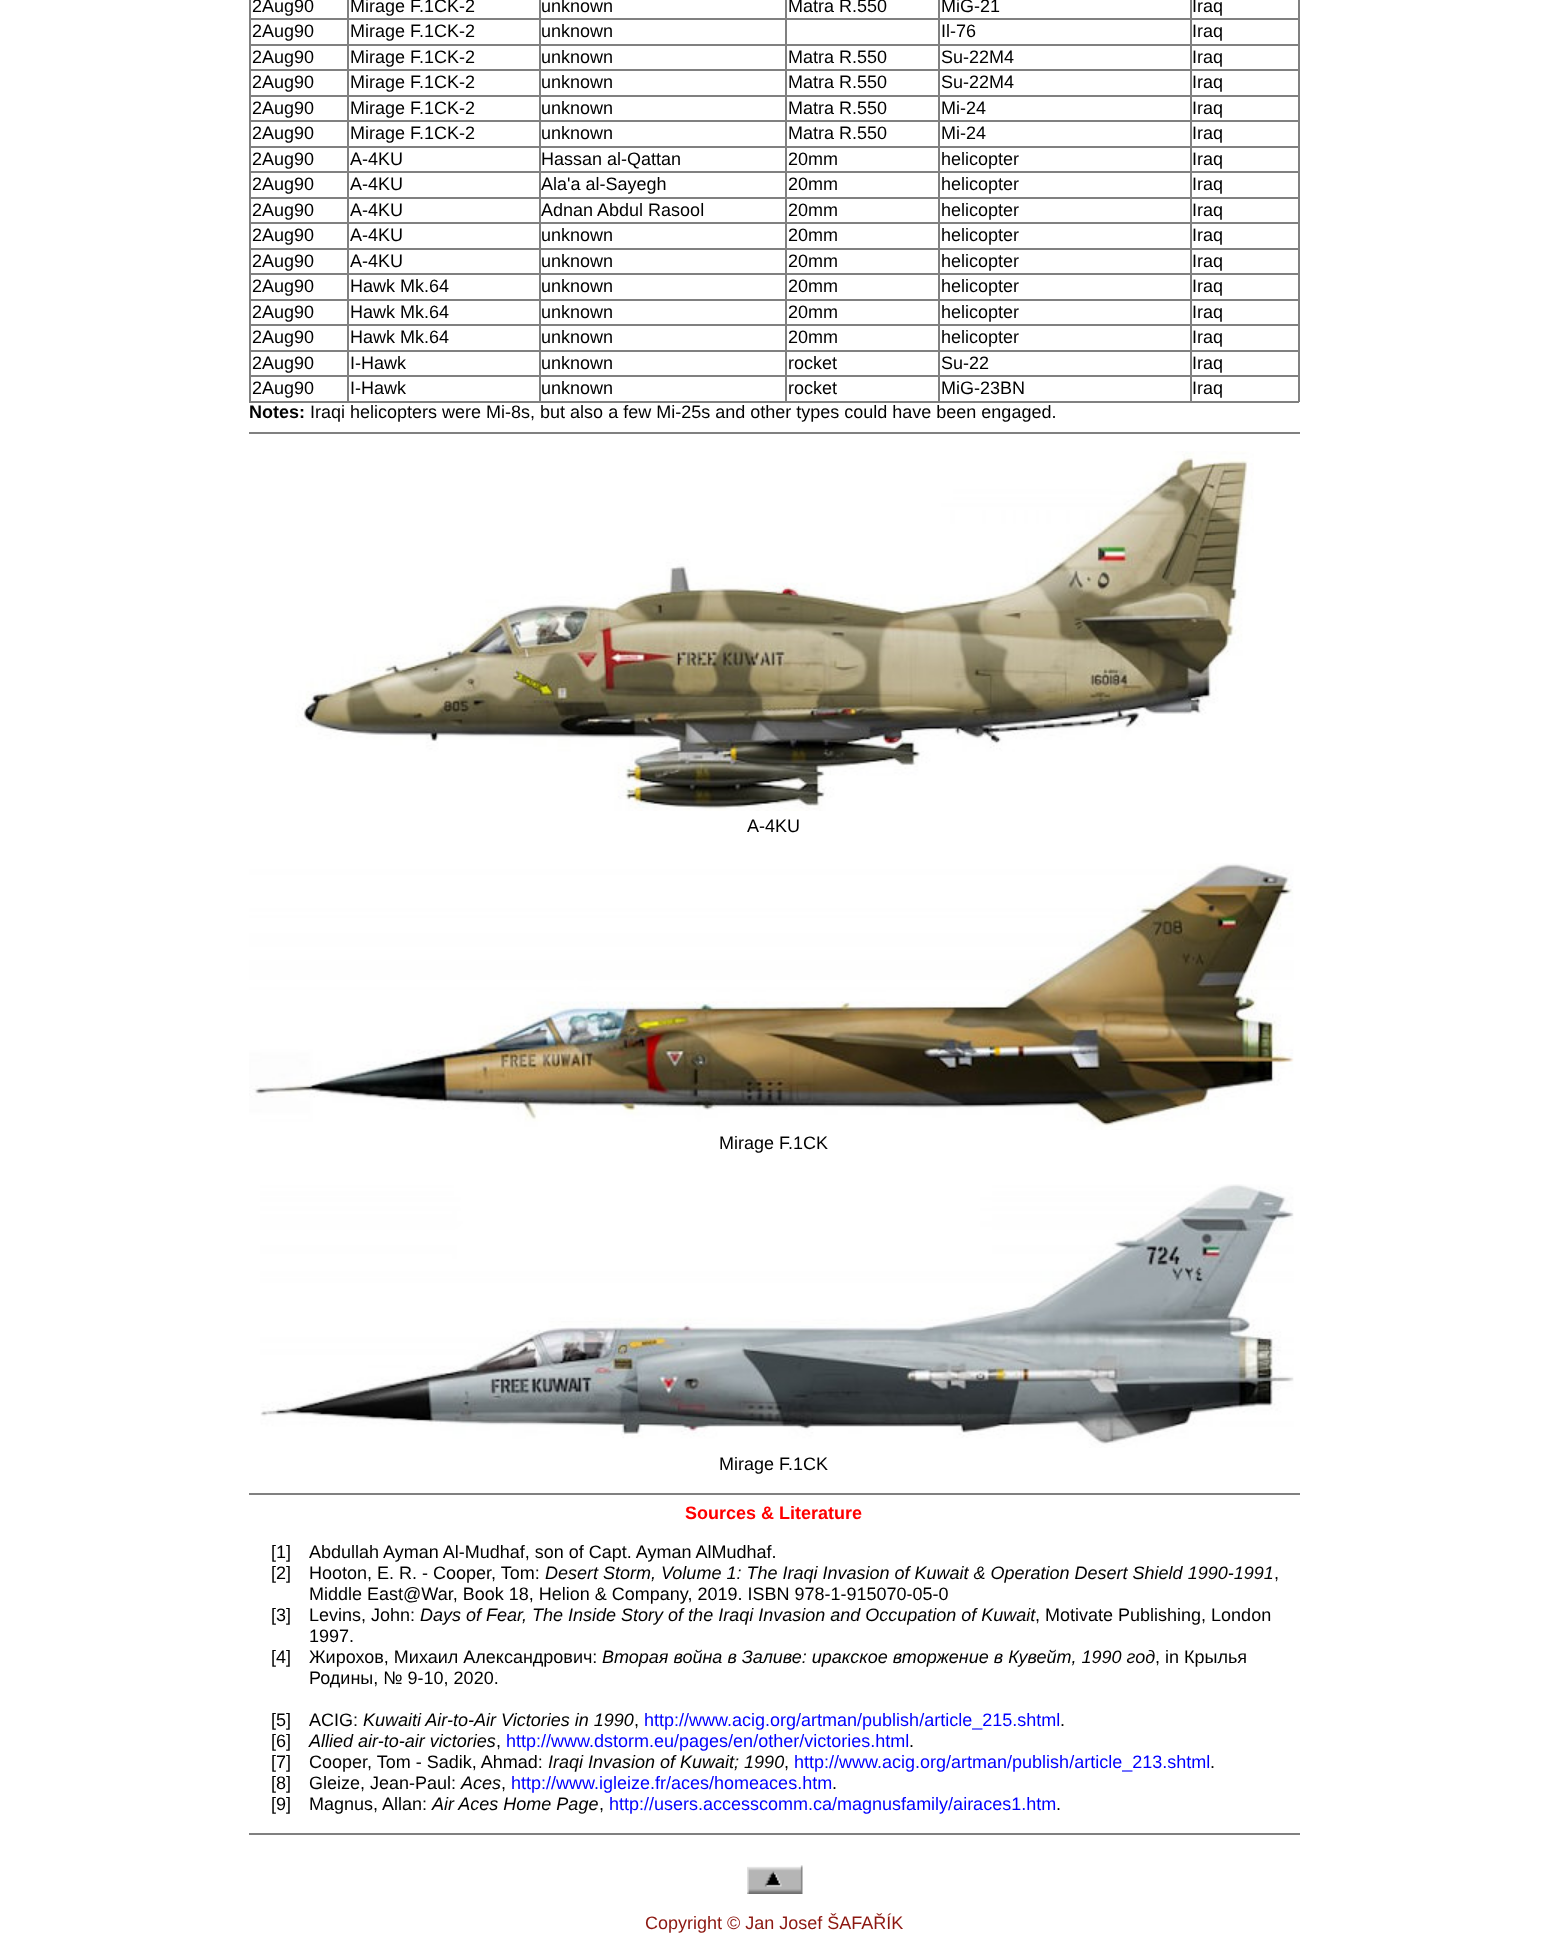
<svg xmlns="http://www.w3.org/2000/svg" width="1547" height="1942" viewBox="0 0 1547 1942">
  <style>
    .t1 { font: 18px Liberation Sans; fill: #000; }
    .t2 { font: bold 18px Liberation Sans; fill: #000; }
    .t3 { font: bold 18px Liberation Sans; fill: #f00; }
    .t4 { font: italic 18px Liberation Sans; fill: #000; }
    .t5 { font: 18px Liberation Sans; fill: #00f; }
    .t6 { font: 18px Liberation Sans; fill: #8c1710; }
  </style>
  <rect width="100%" height="100%" fill="#fff"/>
  <rect x="1298" y="0" width="2" height="402" fill="#808080"/>
  <rect x="249" y="401" width="1050" height="2" fill="#808080"/>
  <rect x="249" y="0" width="2" height="402" fill="#808080"/>
  <text x="252" y="12" class="t1">2Aug90</text>
  <rect x="1190" y="18" width="109" height="2" fill="#808080"/>
  <rect x="1190" y="44" width="109" height="2" fill="#808080"/>
  <rect x="1190" y="69" width="109" height="2" fill="#808080"/>
  <rect x="1190" y="95" width="109" height="2" fill="#808080"/>
  <rect x="1190" y="120" width="109" height="2" fill="#808080"/>
  <rect x="1190" y="146" width="109" height="2" fill="#808080"/>
  <rect x="1190" y="171" width="109" height="2" fill="#808080"/>
  <rect x="1190" y="197" width="109" height="2" fill="#808080"/>
  <rect x="1190" y="222" width="109" height="2" fill="#808080"/>
  <rect x="1190" y="248" width="109" height="2" fill="#808080"/>
  <rect x="1190" y="273" width="109" height="2" fill="#808080"/>
  <rect x="1190" y="299" width="109" height="2" fill="#808080"/>
  <rect x="1190" y="324" width="109" height="2" fill="#808080"/>
  <rect x="1190" y="350" width="109" height="2" fill="#808080"/>
  <rect x="1190" y="375" width="109" height="2" fill="#808080"/>
  <rect x="1190" y="375" width="2" height="27" fill="#808080"/>
  <rect x="938" y="375" width="253" height="2" fill="#808080"/>
  <rect x="1190" y="350" width="2" height="27" fill="#808080"/>
  <rect x="938" y="350" width="253" height="2" fill="#808080"/>
  <rect x="1190" y="324" width="2" height="27" fill="#808080"/>
  <rect x="938" y="324" width="253" height="2" fill="#808080"/>
  <rect x="1190" y="299" width="2" height="27" fill="#808080"/>
  <rect x="938" y="299" width="253" height="2" fill="#808080"/>
  <rect x="1190" y="273" width="2" height="27" fill="#808080"/>
  <rect x="938" y="273" width="253" height="2" fill="#808080"/>
  <rect x="1190" y="248" width="2" height="27" fill="#808080"/>
  <rect x="938" y="248" width="253" height="2" fill="#808080"/>
  <rect x="1190" y="222" width="2" height="27" fill="#808080"/>
  <rect x="938" y="222" width="253" height="2" fill="#808080"/>
  <rect x="1190" y="197" width="2" height="27" fill="#808080"/>
  <rect x="938" y="197" width="253" height="2" fill="#808080"/>
  <rect x="1190" y="171" width="2" height="27" fill="#808080"/>
  <rect x="938" y="171" width="253" height="2" fill="#808080"/>
  <rect x="1190" y="146" width="2" height="27" fill="#808080"/>
  <rect x="938" y="146" width="253" height="2" fill="#808080"/>
  <rect x="1190" y="120" width="2" height="27" fill="#808080"/>
  <rect x="938" y="120" width="253" height="2" fill="#808080"/>
  <rect x="1190" y="95" width="2" height="27" fill="#808080"/>
  <rect x="938" y="95" width="253" height="2" fill="#808080"/>
  <rect x="1190" y="69" width="2" height="27" fill="#808080"/>
  <rect x="938" y="69" width="253" height="2" fill="#808080"/>
  <rect x="1190" y="44" width="2" height="27" fill="#808080"/>
  <rect x="938" y="44" width="253" height="2" fill="#808080"/>
  <rect x="1190" y="18" width="2" height="27" fill="#808080"/>
  <rect x="938" y="18" width="253" height="2" fill="#808080"/>
  <rect x="938" y="375" width="2" height="27" fill="#808080"/>
  <rect x="785" y="375" width="154" height="2" fill="#808080"/>
  <rect x="938" y="350" width="2" height="27" fill="#808080"/>
  <rect x="785" y="350" width="154" height="2" fill="#808080"/>
  <rect x="938" y="324" width="2" height="27" fill="#808080"/>
  <rect x="785" y="324" width="154" height="2" fill="#808080"/>
  <rect x="938" y="299" width="2" height="27" fill="#808080"/>
  <rect x="785" y="299" width="154" height="2" fill="#808080"/>
  <rect x="938" y="273" width="2" height="27" fill="#808080"/>
  <rect x="785" y="273" width="154" height="2" fill="#808080"/>
  <rect x="938" y="248" width="2" height="27" fill="#808080"/>
  <rect x="785" y="248" width="154" height="2" fill="#808080"/>
  <rect x="938" y="222" width="2" height="27" fill="#808080"/>
  <rect x="785" y="222" width="154" height="2" fill="#808080"/>
  <rect x="938" y="197" width="2" height="27" fill="#808080"/>
  <rect x="785" y="197" width="154" height="2" fill="#808080"/>
  <rect x="938" y="171" width="2" height="27" fill="#808080"/>
  <rect x="785" y="171" width="154" height="2" fill="#808080"/>
  <rect x="938" y="146" width="2" height="27" fill="#808080"/>
  <rect x="785" y="146" width="154" height="2" fill="#808080"/>
  <rect x="938" y="120" width="2" height="27" fill="#808080"/>
  <rect x="785" y="120" width="154" height="2" fill="#808080"/>
  <rect x="938" y="95" width="2" height="27" fill="#808080"/>
  <rect x="785" y="95" width="154" height="2" fill="#808080"/>
  <rect x="938" y="69" width="2" height="27" fill="#808080"/>
  <rect x="785" y="69" width="154" height="2" fill="#808080"/>
  <rect x="938" y="44" width="2" height="27" fill="#808080"/>
  <rect x="785" y="44" width="154" height="2" fill="#808080"/>
  <rect x="938" y="18" width="2" height="27" fill="#808080"/>
  <rect x="785" y="18" width="154" height="2" fill="#808080"/>
  <rect x="785" y="375" width="2" height="27" fill="#808080"/>
  <rect x="539" y="375" width="247" height="2" fill="#808080"/>
  <rect x="785" y="350" width="2" height="27" fill="#808080"/>
  <rect x="539" y="350" width="247" height="2" fill="#808080"/>
  <rect x="785" y="324" width="2" height="27" fill="#808080"/>
  <rect x="539" y="324" width="247" height="2" fill="#808080"/>
  <rect x="785" y="299" width="2" height="27" fill="#808080"/>
  <rect x="539" y="299" width="247" height="2" fill="#808080"/>
  <rect x="785" y="273" width="2" height="27" fill="#808080"/>
  <rect x="539" y="273" width="247" height="2" fill="#808080"/>
  <rect x="785" y="248" width="2" height="27" fill="#808080"/>
  <rect x="539" y="248" width="247" height="2" fill="#808080"/>
  <rect x="785" y="222" width="2" height="27" fill="#808080"/>
  <rect x="539" y="222" width="247" height="2" fill="#808080"/>
  <rect x="785" y="197" width="2" height="27" fill="#808080"/>
  <rect x="539" y="197" width="247" height="2" fill="#808080"/>
  <rect x="785" y="171" width="2" height="27" fill="#808080"/>
  <rect x="539" y="171" width="247" height="2" fill="#808080"/>
  <rect x="785" y="146" width="2" height="27" fill="#808080"/>
  <rect x="539" y="146" width="247" height="2" fill="#808080"/>
  <rect x="785" y="120" width="2" height="27" fill="#808080"/>
  <rect x="539" y="120" width="247" height="2" fill="#808080"/>
  <rect x="785" y="95" width="2" height="27" fill="#808080"/>
  <rect x="539" y="95" width="247" height="2" fill="#808080"/>
  <rect x="785" y="69" width="2" height="27" fill="#808080"/>
  <rect x="539" y="69" width="247" height="2" fill="#808080"/>
  <rect x="785" y="44" width="2" height="27" fill="#808080"/>
  <rect x="539" y="44" width="247" height="2" fill="#808080"/>
  <rect x="785" y="18" width="2" height="27" fill="#808080"/>
  <rect x="539" y="18" width="247" height="2" fill="#808080"/>
  <rect x="539" y="375" width="2" height="27" fill="#808080"/>
  <rect x="347" y="375" width="193" height="2" fill="#808080"/>
  <rect x="539" y="350" width="2" height="27" fill="#808080"/>
  <rect x="347" y="350" width="193" height="2" fill="#808080"/>
  <rect x="539" y="324" width="2" height="27" fill="#808080"/>
  <rect x="347" y="324" width="193" height="2" fill="#808080"/>
  <rect x="539" y="299" width="2" height="27" fill="#808080"/>
  <rect x="347" y="299" width="193" height="2" fill="#808080"/>
  <rect x="539" y="273" width="2" height="27" fill="#808080"/>
  <rect x="347" y="273" width="193" height="2" fill="#808080"/>
  <rect x="539" y="248" width="2" height="27" fill="#808080"/>
  <rect x="347" y="248" width="193" height="2" fill="#808080"/>
  <rect x="539" y="222" width="2" height="27" fill="#808080"/>
  <rect x="347" y="222" width="193" height="2" fill="#808080"/>
  <rect x="539" y="197" width="2" height="27" fill="#808080"/>
  <rect x="347" y="197" width="193" height="2" fill="#808080"/>
  <rect x="539" y="171" width="2" height="27" fill="#808080"/>
  <rect x="347" y="171" width="193" height="2" fill="#808080"/>
  <rect x="539" y="146" width="2" height="27" fill="#808080"/>
  <rect x="347" y="146" width="193" height="2" fill="#808080"/>
  <rect x="539" y="120" width="2" height="27" fill="#808080"/>
  <rect x="347" y="120" width="193" height="2" fill="#808080"/>
  <rect x="539" y="95" width="2" height="27" fill="#808080"/>
  <rect x="347" y="95" width="193" height="2" fill="#808080"/>
  <rect x="539" y="69" width="2" height="27" fill="#808080"/>
  <rect x="347" y="69" width="193" height="2" fill="#808080"/>
  <rect x="539" y="44" width="2" height="27" fill="#808080"/>
  <rect x="347" y="44" width="193" height="2" fill="#808080"/>
  <rect x="539" y="18" width="2" height="27" fill="#808080"/>
  <rect x="347" y="18" width="193" height="2" fill="#808080"/>
  <rect x="347" y="375" width="2" height="27" fill="#808080"/>
  <rect x="249" y="375" width="99" height="2" fill="#808080"/>
  <rect x="347" y="350" width="2" height="27" fill="#808080"/>
  <rect x="249" y="350" width="99" height="2" fill="#808080"/>
  <rect x="347" y="324" width="2" height="27" fill="#808080"/>
  <rect x="249" y="324" width="99" height="2" fill="#808080"/>
  <rect x="347" y="299" width="2" height="27" fill="#808080"/>
  <rect x="249" y="299" width="99" height="2" fill="#808080"/>
  <rect x="347" y="273" width="2" height="27" fill="#808080"/>
  <rect x="249" y="273" width="99" height="2" fill="#808080"/>
  <rect x="347" y="248" width="2" height="27" fill="#808080"/>
  <rect x="249" y="248" width="99" height="2" fill="#808080"/>
  <rect x="347" y="222" width="2" height="27" fill="#808080"/>
  <rect x="249" y="222" width="99" height="2" fill="#808080"/>
  <rect x="347" y="197" width="2" height="27" fill="#808080"/>
  <rect x="249" y="197" width="99" height="2" fill="#808080"/>
  <rect x="347" y="171" width="2" height="27" fill="#808080"/>
  <rect x="249" y="171" width="99" height="2" fill="#808080"/>
  <rect x="347" y="146" width="2" height="27" fill="#808080"/>
  <rect x="249" y="146" width="99" height="2" fill="#808080"/>
  <rect x="347" y="120" width="2" height="27" fill="#808080"/>
  <rect x="249" y="120" width="99" height="2" fill="#808080"/>
  <rect x="347" y="95" width="2" height="27" fill="#808080"/>
  <rect x="249" y="95" width="99" height="2" fill="#808080"/>
  <rect x="347" y="69" width="2" height="27" fill="#808080"/>
  <rect x="249" y="69" width="99" height="2" fill="#808080"/>
  <rect x="347" y="44" width="2" height="27" fill="#808080"/>
  <rect x="249" y="44" width="99" height="2" fill="#808080"/>
  <rect x="347" y="18" width="2" height="27" fill="#808080"/>
  <rect x="249" y="18" width="99" height="2" fill="#808080"/>
  <rect x="347" y="0" width="2" height="20" fill="#808080"/>
  <text x="350" y="12" class="t1">Mirage F.1CK-2</text>
  <rect x="539" y="0" width="2" height="20" fill="#808080"/>
  <text x="541" y="12" class="t1">unknown</text>
  <rect x="785" y="0" width="2" height="20" fill="#808080"/>
  <text x="788" y="12" class="t1">Matra R.550</text>
  <rect x="938" y="0" width="2" height="20" fill="#808080"/>
  <text x="941" y="12" class="t1">MiG-21</text>
  <rect x="1190" y="0" width="2" height="20" fill="#808080"/>
  <text x="1192" y="12" class="t1">Iraq</text>
  <text x="252" y="37" class="t1">2Aug90</text>
  <text x="350" y="37" class="t1">Mirage F.1CK-2</text>
  <text x="541" y="37" class="t1">unknown</text>
  <text x="941" y="37" class="t1">Il-76</text>
  <text x="1192" y="37" class="t1">Iraq</text>
  <text x="252" y="63" class="t1">2Aug90</text>
  <text x="350" y="63" class="t1">Mirage F.1CK-2</text>
  <text x="541" y="63" class="t1">unknown</text>
  <text x="788" y="63" class="t1">Matra R.550</text>
  <text x="941" y="63" class="t1">Su-22M4</text>
  <text x="1192" y="63" class="t1">Iraq</text>
  <text x="252" y="88" class="t1">2Aug90</text>
  <text x="350" y="88" class="t1">Mirage F.1CK-2</text>
  <text x="541" y="88" class="t1">unknown</text>
  <text x="788" y="88" class="t1">Matra R.550</text>
  <text x="941" y="88" class="t1">Su-22M4</text>
  <text x="1192" y="88" class="t1">Iraq</text>
  <text x="252" y="114" class="t1">2Aug90</text>
  <text x="350" y="114" class="t1">Mirage F.1CK-2</text>
  <text x="541" y="114" class="t1">unknown</text>
  <text x="788" y="114" class="t1">Matra R.550</text>
  <text x="941" y="114" class="t1">Mi-24</text>
  <text x="1192" y="114" class="t1">Iraq</text>
  <text x="252" y="139" class="t1">2Aug90</text>
  <text x="350" y="139" class="t1">Mirage F.1CK-2</text>
  <text x="541" y="139" class="t1">unknown</text>
  <text x="788" y="139" class="t1">Matra R.550</text>
  <text x="941" y="139" class="t1">Mi-24</text>
  <text x="1192" y="139" class="t1">Iraq</text>
  <text x="252" y="165" class="t1">2Aug90</text>
  <text x="350" y="165" class="t1">A-4KU</text>
  <text x="541" y="165" class="t1">Hassan al-Qattan</text>
  <text x="788" y="165" class="t1">20mm</text>
  <text x="941" y="165" class="t1">helicopter</text>
  <text x="1192" y="165" class="t1">Iraq</text>
  <text x="252" y="190" class="t1">2Aug90</text>
  <text x="350" y="190" class="t1">A-4KU</text>
  <text x="541" y="190" class="t1">Ala'a al-Sayegh</text>
  <text x="788" y="190" class="t1">20mm</text>
  <text x="941" y="190" class="t1">helicopter</text>
  <text x="1192" y="190" class="t1">Iraq</text>
  <text x="252" y="216" class="t1">2Aug90</text>
  <text x="350" y="216" class="t1">A-4KU</text>
  <text x="541" y="216" class="t1">Adnan Abdul Rasool</text>
  <text x="788" y="216" class="t1">20mm</text>
  <text x="941" y="216" class="t1">helicopter</text>
  <text x="1192" y="216" class="t1">Iraq</text>
  <text x="252" y="241" class="t1">2Aug90</text>
  <text x="350" y="241" class="t1">A-4KU</text>
  <text x="541" y="241" class="t1">unknown</text>
  <text x="788" y="241" class="t1">20mm</text>
  <text x="941" y="241" class="t1">helicopter</text>
  <text x="1192" y="241" class="t1">Iraq</text>
  <text x="252" y="267" class="t1">2Aug90</text>
  <text x="350" y="267" class="t1">A-4KU</text>
  <text x="541" y="267" class="t1">unknown</text>
  <text x="788" y="267" class="t1">20mm</text>
  <text x="941" y="267" class="t1">helicopter</text>
  <text x="1192" y="267" class="t1">Iraq</text>
  <text x="252" y="292" class="t1">2Aug90</text>
  <text x="350" y="292" class="t1">Hawk Mk.64</text>
  <text x="541" y="292" class="t1">unknown</text>
  <text x="788" y="292" class="t1">20mm</text>
  <text x="941" y="292" class="t1">helicopter</text>
  <text x="1192" y="292" class="t1">Iraq</text>
  <text x="252" y="318" class="t1">2Aug90</text>
  <text x="350" y="318" class="t1">Hawk Mk.64</text>
  <text x="541" y="318" class="t1">unknown</text>
  <text x="788" y="318" class="t1">20mm</text>
  <text x="941" y="318" class="t1">helicopter</text>
  <text x="1192" y="318" class="t1">Iraq</text>
  <text x="252" y="343" class="t1">2Aug90</text>
  <text x="350" y="343" class="t1">Hawk Mk.64</text>
  <text x="541" y="343" class="t1">unknown</text>
  <text x="788" y="343" class="t1">20mm</text>
  <text x="941" y="343" class="t1">helicopter</text>
  <text x="1192" y="343" class="t1">Iraq</text>
  <text x="252" y="369" class="t1">2Aug90</text>
  <text x="350" y="369" class="t1">I-Hawk</text>
  <text x="541" y="369" class="t1">unknown</text>
  <text x="788" y="369" class="t1">rocket</text>
  <text x="941" y="369" class="t1">Su-22</text>
  <text x="1192" y="369" class="t1">Iraq</text>
  <text x="252" y="394" class="t1">2Aug90</text>
  <text x="350" y="394" class="t1">I-Hawk</text>
  <text x="541" y="394" class="t1">unknown</text>
  <text x="788" y="394" class="t1">rocket</text>
  <text x="941" y="394" class="t1">MiG-23BN</text>
  <text x="1192" y="394" class="t1">Iraq</text>
  <text x="249" y="418" class="t2">Notes:</text>
  <text x="310" y="418" class="t1">Iraqi helicopters were Mi-8s, but also a few Mi-25s and other types could have been engaged.</text>
  <rect x="249" y="432" width="1051" height="2" fill="#808080"/>
  <image x="295" y="451" width="959" height="360" href="images/1.png"/>
  <text x="747" y="832" class="t1">A-4KU</text>
  <image x="249" y="863" width="1045" height="267" href="images/2.png"/>
  <text x="719" y="1149" class="t1">Mirage F.1CK</text>
  <image x="260" y="1184" width="1034" height="264" href="images/3.png"/>
  <text x="719" y="1470" class="t1">Mirage F.1CK</text>
  <rect x="249" y="1493" width="1051" height="2" fill="#808080"/>
  <text x="685" y="1519" class="t3">Sources &amp; Literature</text>
  <text x="271" y="1558" class="t1">[1]</text>
  <text x="309" y="1558" class="t1">Abdullah Ayman Al-Mudhaf, son of Capt. Ayman AlMudhaf.</text>
  <text x="271" y="1579" class="t1">[2]</text>
  <text x="309" y="1579" class="t1">Hooton, E. R. - Cooper, Tom:</text>
  <text x="545" y="1579" class="t4">Desert Storm, Volume 1: The Iraqi Invasion of Kuwait &amp; Operation Desert Shield 1990-1991</text>
  <text x="1274" y="1579" class="t1">,</text>
  <text x="309" y="1600" class="t1">Middle East@War, Book 18, Helion &amp; Company, 2019. ISBN 978-1-915070-05-0</text>
  <text x="271" y="1621" class="t1">[3]</text>
  <text x="309" y="1621" class="t1">Levins, John:</text>
  <text x="420" y="1621" class="t4">Days of Fear, The Inside Story of the Iraqi Invasion and Occupation of Kuwait</text>
  <text x="1035" y="1621" class="t1">, Motivate Publishing, London</text>
  <text x="309" y="1642" class="t1">1997.</text>
  <text x="271" y="1663" class="t1">[4]</text>
  <text x="309" y="1663" class="t1">Жирохов, Михаил Александрович:</text>
  <text x="602" y="1663" class="t4">Вторая война в Заливе: иракское вторжение в Кувейт, 1990 год</text>
  <text x="1155" y="1663" class="t1">, in Крылья</text>
  <text x="309" y="1684" class="t1">Родины, № 9-10, 2020.</text>
  <text x="271" y="1726" class="t1">[5]</text>
  <text x="309" y="1726" class="t1">ACIG:</text>
  <text x="363" y="1726" class="t4">Kuwaiti Air-to-Air Victories in 1990</text>
  <text x="634" y="1726" class="t1">,</text>
  <text x="644" y="1726" class="t5">http://www.acig.org/artman/publish/article_215.shtml</text>
  <text x="1060" y="1726" class="t1">.</text>
  <text x="271" y="1747" class="t1">[6]</text>
  <text x="309" y="1747" class="t4">Allied air-to-air victories</text>
  <text x="496" y="1747" class="t1">,</text>
  <text x="506" y="1747" class="t5">http://www.dstorm.eu/pages/en/other/victories.html</text>
  <text x="909" y="1747" class="t1">.</text>
  <text x="271" y="1768" class="t1">[7]</text>
  <text x="309" y="1768" class="t1">Cooper, Tom - Sadik, Ahmad:</text>
  <text x="548" y="1768" class="t4">Iraqi Invasion of Kuwait; 1990</text>
  <text x="784" y="1768" class="t1">,</text>
  <text x="794" y="1768" class="t5">http://www.acig.org/artman/publish/article_213.shtml</text>
  <text x="1210" y="1768" class="t1">.</text>
  <text x="271" y="1789" class="t1">[8]</text>
  <text x="309" y="1789" class="t1">Gleize, Jean-Paul:</text>
  <text x="461" y="1789" class="t4">Aces</text>
  <text x="501" y="1789" class="t1">,</text>
  <text x="511" y="1789" class="t5">http://www.igleize.fr/aces/homeaces.htm</text>
  <text x="832" y="1789" class="t1">.</text>
  <text x="271" y="1810" class="t1">[9]</text>
  <text x="309" y="1810" class="t1">Magnus, Allan:</text>
  <text x="432" y="1810" class="t4">Air Aces Home Page</text>
  <text x="599" y="1810" class="t1">,</text>
  <text x="609" y="1810" class="t5">http://users.accesscomm.ca/magnusfamily/airaces1.htm</text>
  <text x="1056" y="1810" class="t1">.</text>
  <rect x="249" y="1833" width="1051" height="2" fill="#808080"/>
  <image x="747" y="1865" width="56" height="29" href="images/4.png"/>
  <text x="645" y="1929" class="t6">Copyright © Jan Josef ŠAFAŘÍK</text>
</svg>
